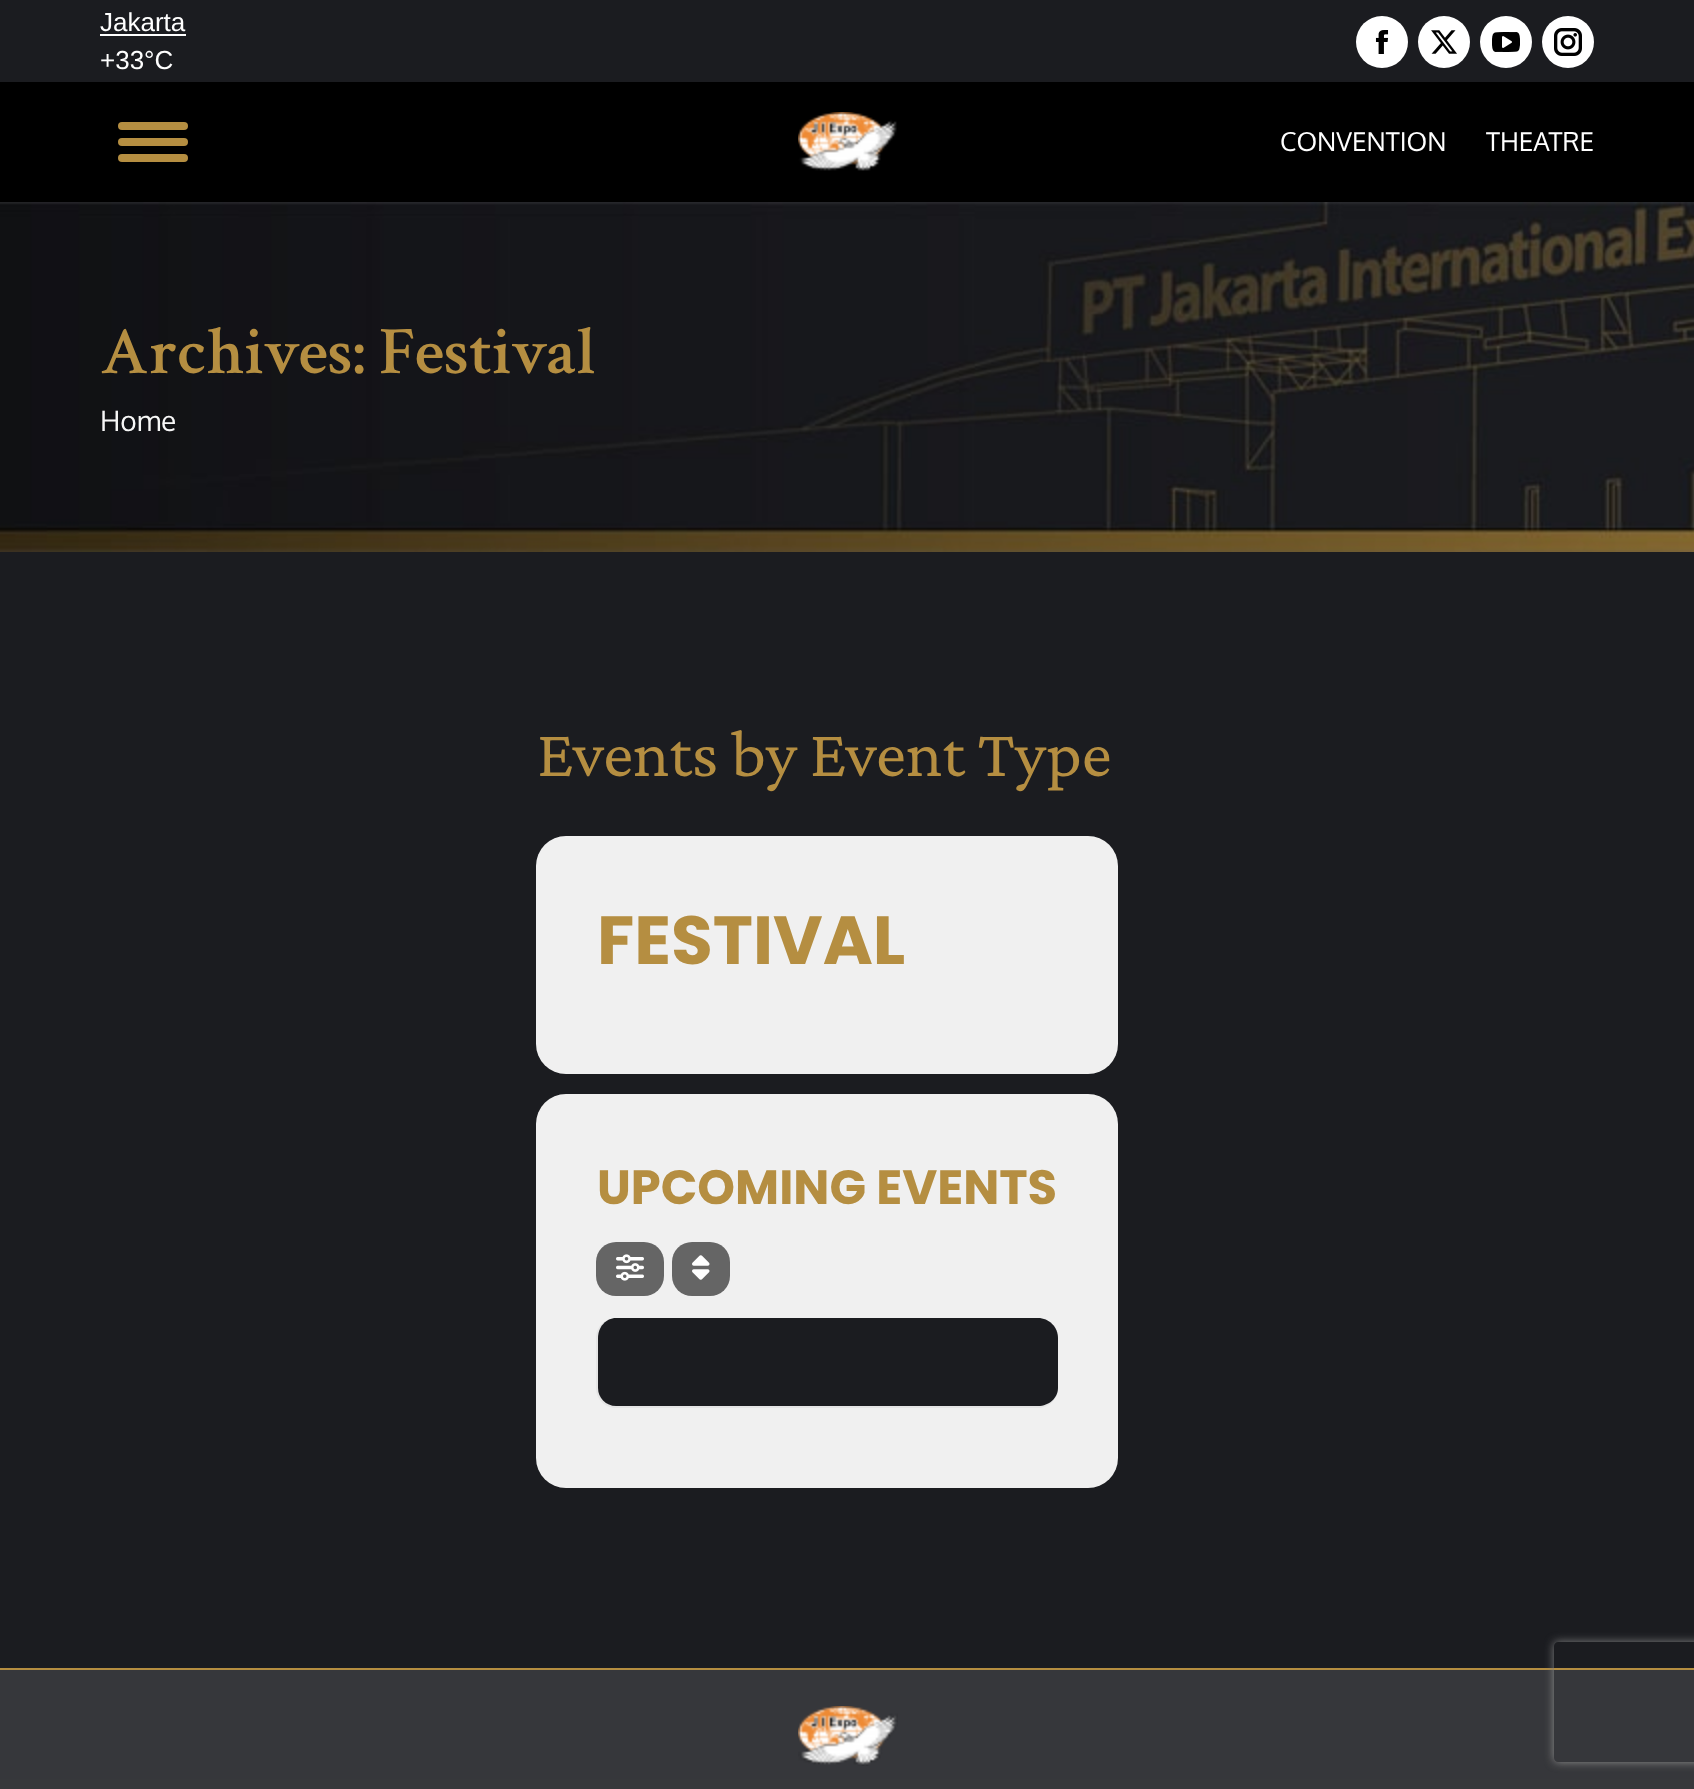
<svg xmlns="http://www.w3.org/2000/svg" width="1694" height="1789" viewBox="0 0 1694 1789">
  <style>
    .t1 { font: 26px Liberation Sans; fill: #fff; }
    .t2 { font: 26px Oxygen; fill: #fff; }
    .t3 { font: 600 68px Crimson Text; fill: #b58e41; }
    .t4 { font: 28px Oxygen; fill: #f7f7f7; }
    .t5 { font: 68px Crimson Pro; fill: #b58e41; }
    .t6 { font: bold 68px Poppins; fill: #b58e41; }
    .t7 { font: bold 48px Poppins; fill: #b58e41; }
  </style>
  <defs>
    <clipPath id="clip1"><path d="M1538 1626H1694V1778H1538ZM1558 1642H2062C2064 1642 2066 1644 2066 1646V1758C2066 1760 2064 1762 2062 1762H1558C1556 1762 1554 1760 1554 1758V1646C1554 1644 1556 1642 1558 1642Z" clip-rule="evenodd"/></clipPath>
  </defs>
  <rect width="100%" height="100%" fill="#1b1c20"/>
  <rect x="0" y="82" width="1694" height="120" fill="#000"/>
  <text x="100" y="31" class="t1">Jakarta</text>
  <rect x="100" y="34" width="86" height="2" fill="#fff"/>
  <text x="100" y="69" class="t1">+33°C</text>
  <circle cx="1382" cy="42" r="26" fill="#fff"/>
  <image x="1375" y="30" width="14" height="24" href="images/1.png"/>
  <circle cx="1444" cy="42" r="26" fill="#fff"/>
  <image x="1431" y="30" width="26" height="24" href="images/2.png"/>
  <circle cx="1506" cy="42" r="26" fill="#fff"/>
  <image x="1492" y="32" width="28" height="20" href="images/3.png"/>
  <circle cx="1568" cy="42" r="26" fill="#fff"/>
  <image x="1554" y="28" width="28" height="28" href="images/4.png"/>
  <rect x="118" y="122" width="70" height="8" rx="4" fill="#b58e41"/>
  <rect x="118" y="138" width="70" height="8" rx="4" fill="#b58e41"/>
  <rect x="118" y="154" width="70" height="8" rx="4" fill="#b58e41"/>
  <image x="798" y="112" width="99" height="59" href="images/5.png"/>
  <text x="1280" y="151" class="t2">CONVENTION</text>
  <text x="1486" y="151" class="t2">THEATRE</text>
  <image x="0" y="202" width="1694" height="350" href="images/6.png"/>
  <text x="100" y="373" class="t3">Archives: Festival</text>
  <text x="100" y="431" class="t4">Home</text>
  <text x="537" y="776" class="t5">Events by Event Type</text>
  <rect x="536" y="836" width="582" height="238" rx="30" fill="#f0f0f0"/>
  <text x="597" y="964" class="t6">FESTIVAL</text>
  <rect x="536" y="1094" width="582" height="394" rx="30" fill="#f0f0f0"/>
  <text x="597" y="1204" class="t7">UPCOMING EVENTS</text>
  <rect x="596" y="1242" width="68" height="54" rx="20" fill="#656565"/>
  <image x="616" y="1254" width="28" height="27" href="images/7.png"/>
  <rect x="672" y="1242" width="58" height="54" rx="20" fill="#656565"/>
  <image x="692" y="1255" width="18" height="25" href="images/8.png"/>
  <path d="M616 1318H1038C1049 1318 1058 1327 1058 1338V1388C1058 1399 1049 1408 1038 1408H616C605 1408 596 1399 596 1388V1338C596 1327 605 1318 616 1318ZM616 1318H1038C1049 1318 1058 1327 1058 1338V1388C1058 1398 1049 1406 1038 1406H616C606 1406 598 1398 598 1388V1338C598 1327 606 1318 616 1318Z" fill="#e5e5e5" fill-rule="evenodd"/>
  <path d="M616 1318C606 1318 598 1327 598 1338V1388C598 1398 606 1406 616 1406H1038C1049 1406 1058 1398 1058 1388V1338C1058 1327 1049 1318 1038 1318Z" fill="#1b1c20"/>
  <rect x="0" y="1668" width="1694" height="2" fill="#b58e41"/>
  <g clip-path="url(#clip1)">
    <rect x="1554" y="1642" width="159" height="120" rx="4" fill="#808080" filter="blur(5px)"/>
  </g>
  <rect x="0" y="1670" width="1694" height="119" fill="#ffffff1f"/>
  <image x="798" y="1706" width="100" height="60" href="images/9.png"/>
</svg>
